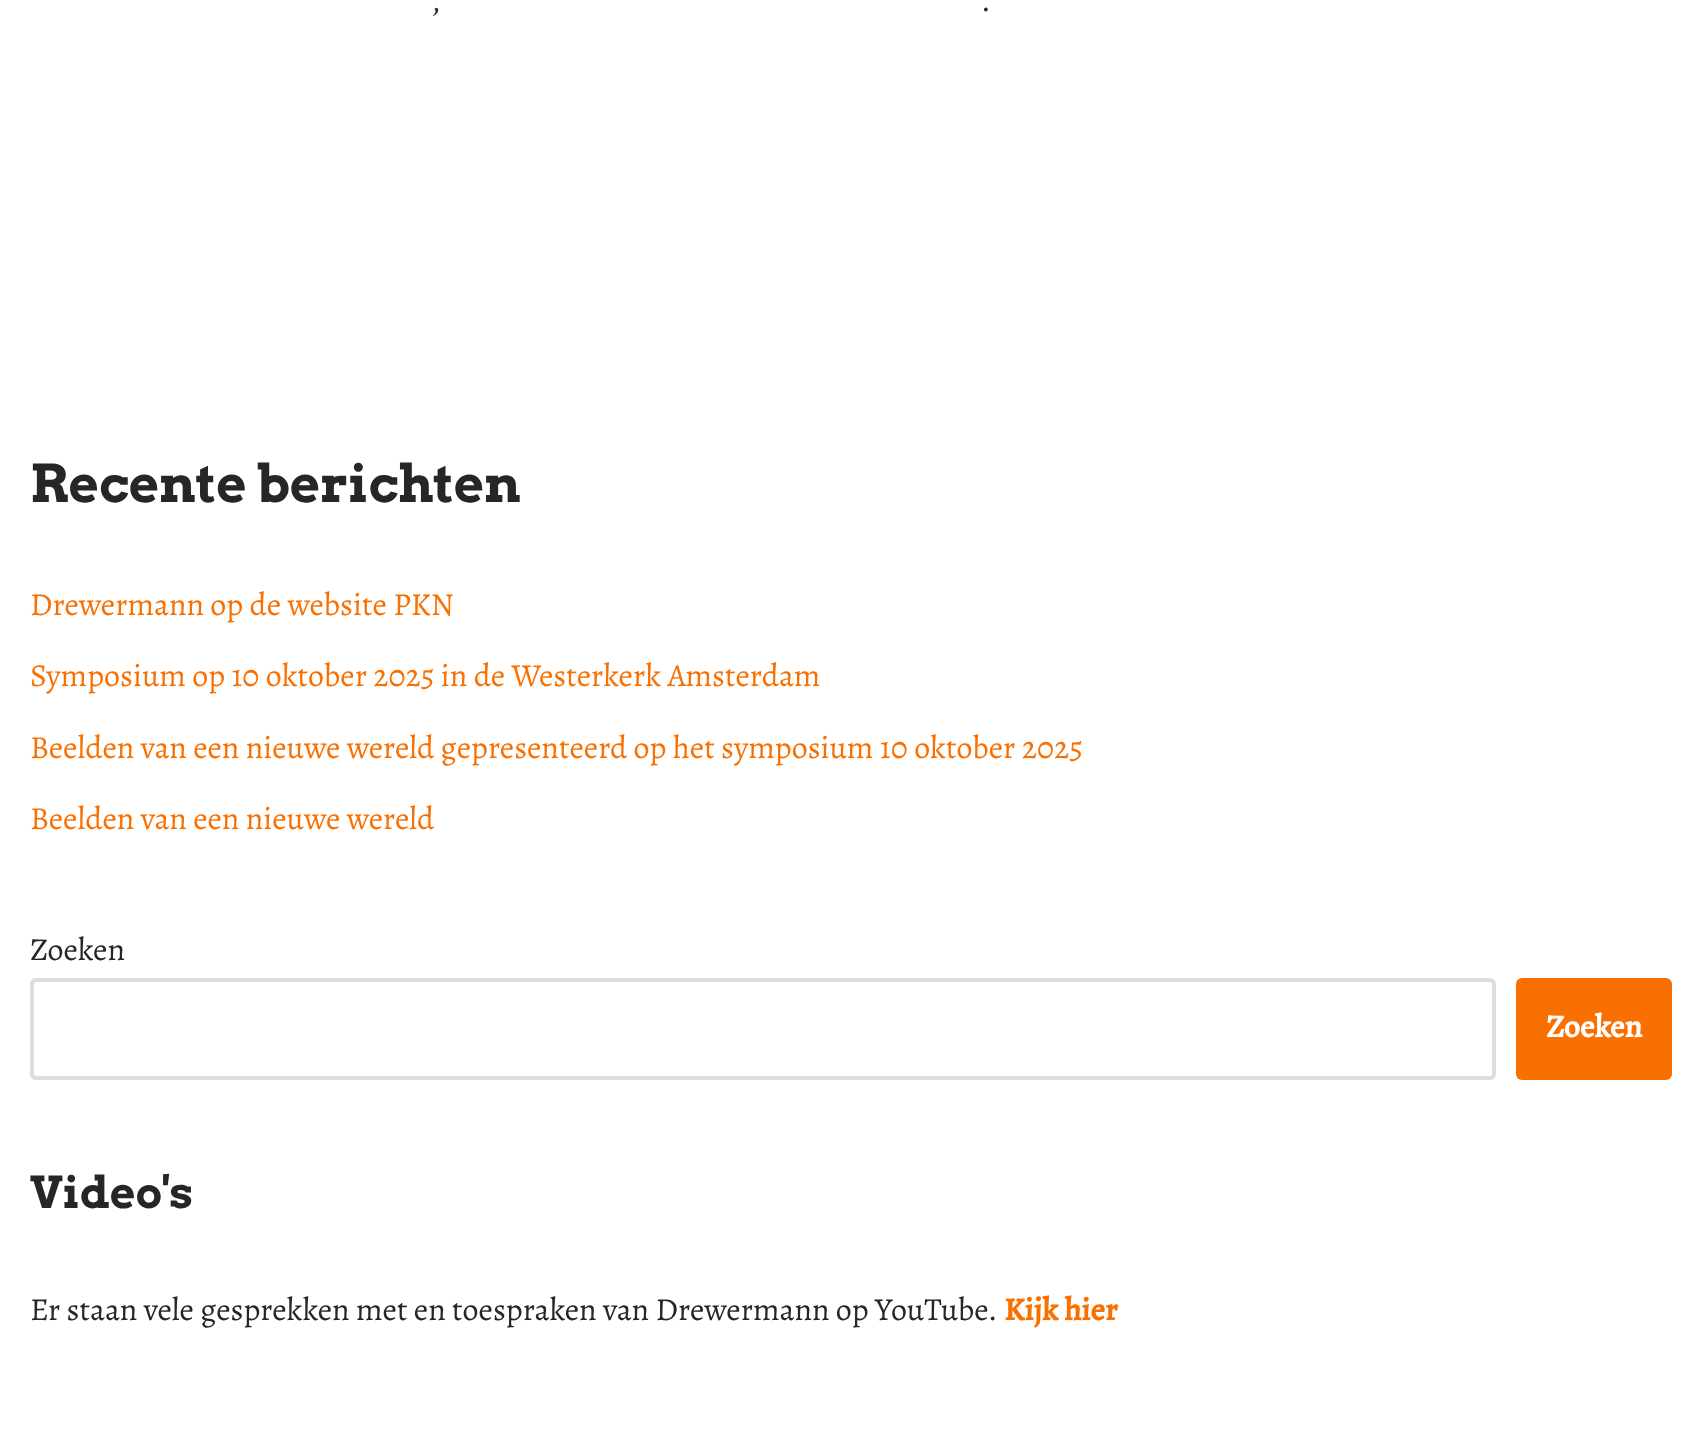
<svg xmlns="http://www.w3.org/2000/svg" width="1702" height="1448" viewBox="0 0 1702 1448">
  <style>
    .t1 { font: 32px Alegreya; fill: #272626; }
    .t2 { font: bold 52px Arvo; fill: #272626; }
    .t3 { font: 32px Alegreya; fill: #f97000; }
    .t4 { font: bold 32px Alegreya; fill: #fff; }
    .t5 { font: bold 44px Arvo; fill: #272626; }
    .t6 { font: bold 32px Alegreya; fill: #f97000; }
  </style>
  <rect width="100%" height="100%" fill="#fff"/>
  <text x="431" y="11" class="t1">,</text>
  <text x="981" y="11" class="t1">.</text>
  <text x="30" y="502" class="t2">Recente berichten</text>
  <text x="30" y="615" class="t3">Drewermann op de website PKN</text>
  <text x="30" y="686" class="t3">Symposium op 10 oktober 2025 in de Westerkerk Amsterdam</text>
  <text x="30" y="758" class="t3">Beelden van een nieuwe wereld gepresenteerd op het symposium 10 oktober 2025</text>
  <text x="30" y="829" class="t3">Beelden van een nieuwe wereld</text>
  <text x="30" y="960" class="t1">Zoeken</text>
  <rect x="32" y="980" width="1462" height="98" rx="4" fill="none" stroke="#ddd" stroke-width="4"/>
  <rect x="1516" y="978" width="156" height="102" rx="6" fill="#f97000"/>
  <text x="1546" y="1037" class="t4">Zoeken</text>
  <text x="30" y="1208" class="t5">Video's</text>
  <text x="30" y="1320" class="t1">Er staan vele gesprekken met en toespraken van Drewermann op YouTube.</text>
  <text x="1004" y="1320" class="t6">Kijk hier</text>
</svg>
